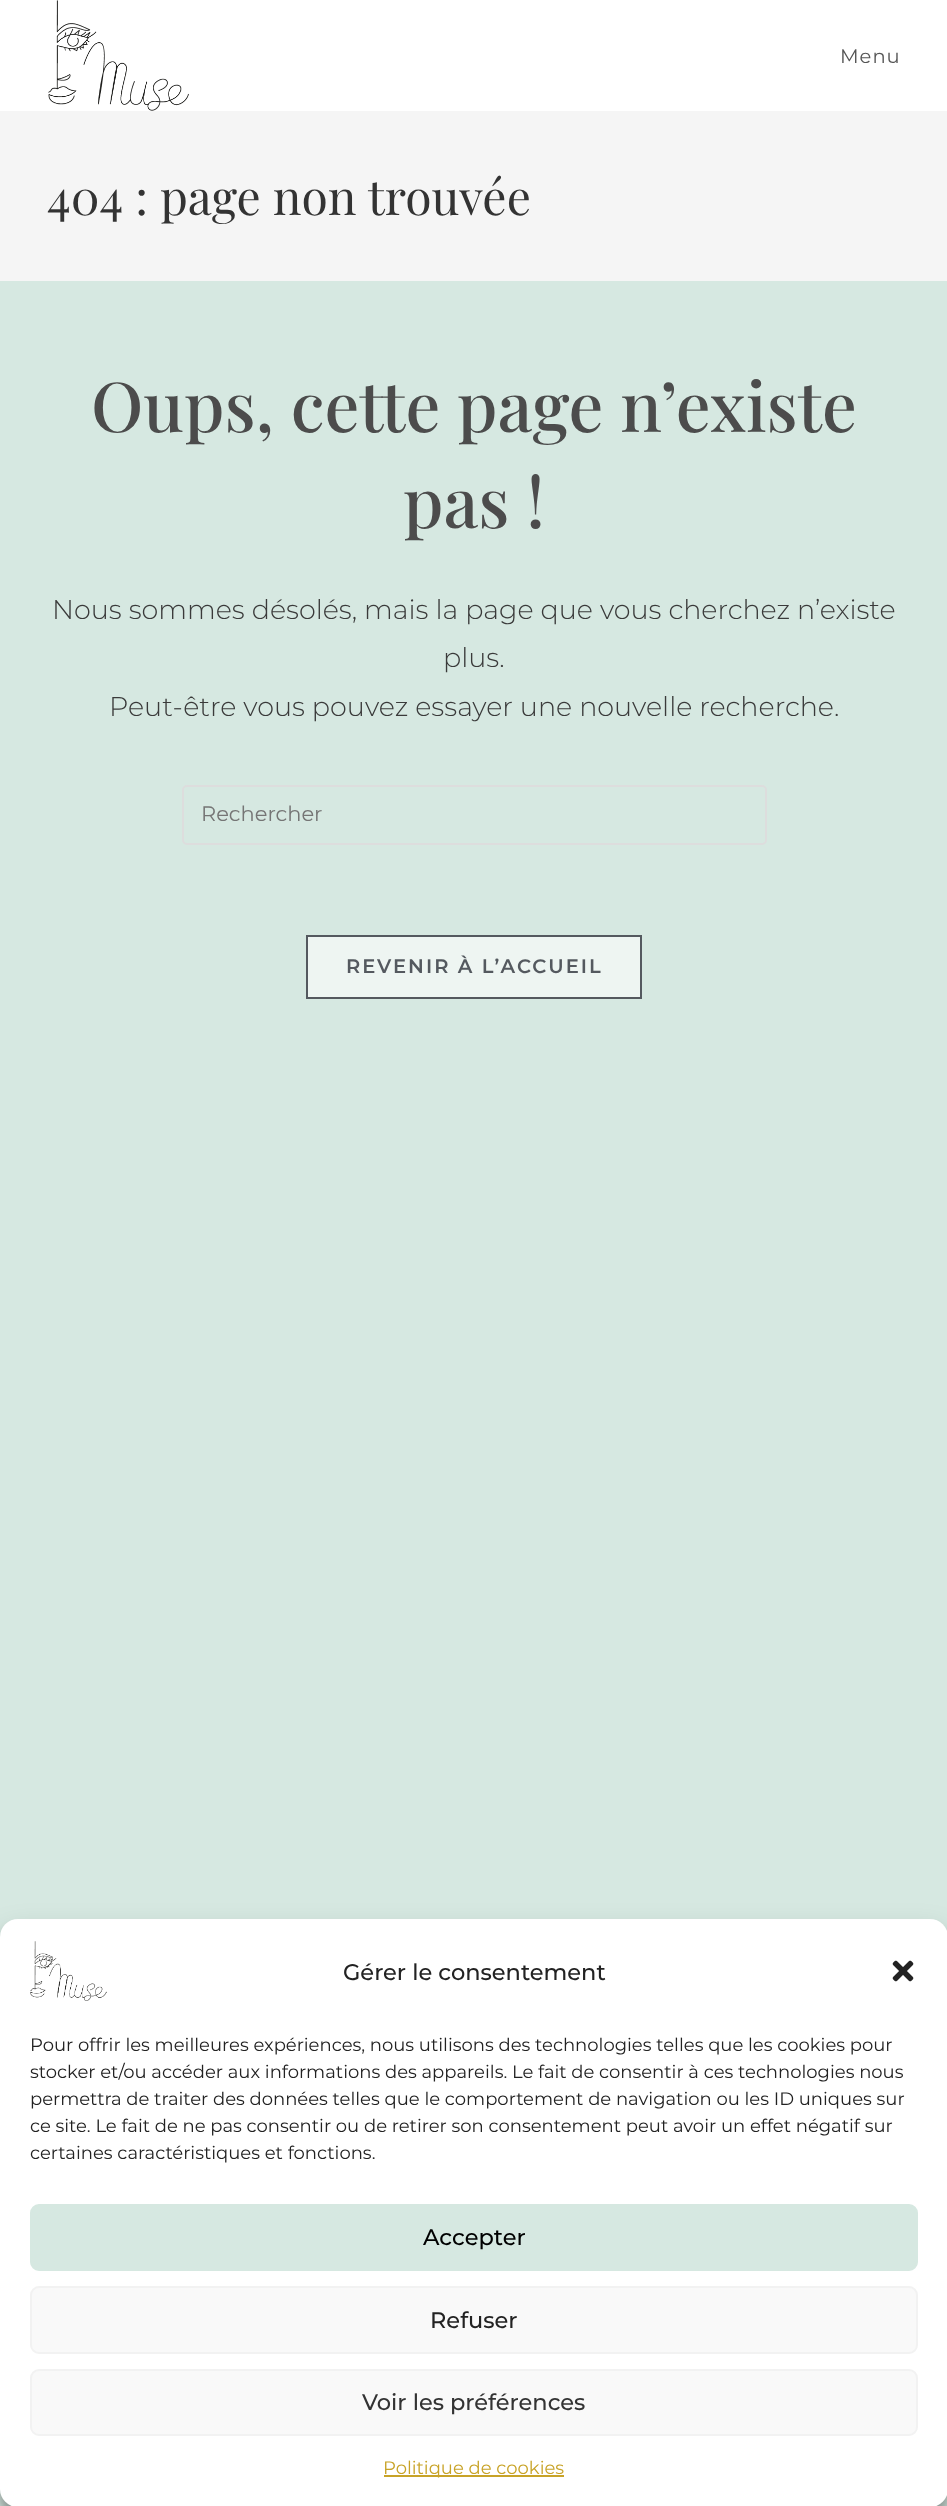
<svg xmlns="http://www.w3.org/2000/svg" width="947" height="2506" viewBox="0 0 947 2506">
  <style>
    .t1 { font: 19.5px Montserrat; letter-spacing: 1px; fill: #555; }
    .t2 { font: 48px Playfair Display; fill: #333; }
    .t3 { font: 500 69px Playfair Display; fill: #4c4c4c; }
    .t4 { font: 300 27px Montserrat; fill: #3a3a3a; }
    .t5 { font: 21px Montserrat; fill: #757575; }
    .t6 { font: 600 19.5px Montserrat; letter-spacing: 2px; fill: #54595f; }
    .t7 { font: 500 22.5px Montserrat; fill: #222; }
    .t8 { font: 18px Montserrat; fill: #222; }
    .t9 { font: 500 22.5px Montserrat; fill: #000; }
    .t10 { font: 500 22.5px Montserrat; fill: #333; }
    .t11 { font: 18px Montserrat; fill: #c8a327; }
  </style>
  <rect width="100%" height="100%" fill="#d6e8e1"/>
  <rect x="0" y="0" width="947" height="111" fill="#fff"/>
  <image x="48" y="0" width="141" height="111" href="images/1.png"/>
  <text x="840" y="63" class="t1">Menu</text>
  <rect x="0" y="111" width="947" height="170" fill="#f5f5f5"/>
  <text x="47" y="215" class="t2">404 : page non trouvée</text>
  <text x="91" y="432" class="t3">Oups, cette page n’existe</text>
  <text x="403" y="528" class="t3">pas !</text>
  <text x="52" y="619" class="t4">Nous sommes désolés, mais la page que vous cherchez n’existe</text>
  <text x="443" y="667" class="t4">plus.</text>
  <text x="109" y="716" class="t4">Peut-être vous pouvez essayer une nouvelle recherche.</text>
  <rect x="183" y="786" width="583" height="58" rx="4" fill="none" stroke="#ddd" stroke-width="2"/>
  <text x="201" y="821" class="t5">Rechercher</text>
  <rect x="307" y="936" width="334" height="62" fill="#eef5f2" stroke="#54595f" stroke-width="2"/>
  <text x="346" y="973" class="t6">REVENIR À L’ACCUEIL</text>
  <rect x="0" y="1928" width="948" height="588" rx="18" fill="#0000003b" filter="blur(4.5px)"/>
  <rect x="0" y="1934" width="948" height="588" rx="18" fill="#00000030" filter="blur(15px)"/>
  <rect x="0" y="1919" width="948" height="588" rx="18" fill="#fff"/>
  <image x="30" y="1941" width="77" height="60" href="images/2.png"/>
  <text x="343" y="1980" class="t7">Gérer le consentement</text>
  <image x="892" y="1960" width="22" height="22" href="images/3.png"/>
  <text x="30" y="2051" class="t8">Pour offrir les meilleures expériences, nous utilisons des technologies telles que les cookies pour</text>
  <text x="30" y="2078" class="t8">stocker et/ou accéder aux informations des appareils. Le fait de consentir à ces technologies nous</text>
  <text x="30" y="2105" class="t8">permettra de traiter des données telles que le comportement de navigation ou les ID uniques sur</text>
  <text x="30" y="2132" class="t8">ce site. Le fait de ne pas consentir ou de retirer son consentement peut avoir un effet négatif sur</text>
  <text x="30" y="2159" class="t8">certaines caractéristiques et fonctions.</text>
  <rect x="31" y="2205" width="886" height="65" rx="8" fill="#d6e8e1" stroke="#d6e8e1" stroke-width="2"/>
  <text x="423" y="2245" class="t9">Accepter</text>
  <rect x="31" y="2287" width="886" height="66" rx="8" fill="#f9f9f9" stroke="#f2f2f2" stroke-width="2"/>
  <text x="430" y="2328" class="t7">Refuser</text>
  <rect x="31" y="2370" width="886" height="65" rx="8" fill="#f9f9f9" stroke="#f2f2f2" stroke-width="2"/>
  <text x="362" y="2410" class="t10">Voir les préférences</text>
  <rect x="384" y="2475" width="180" height="2" fill="#c8a327"/>
  <text x="383" y="2474" class="t11">Politique de cookies</text>
</svg>
